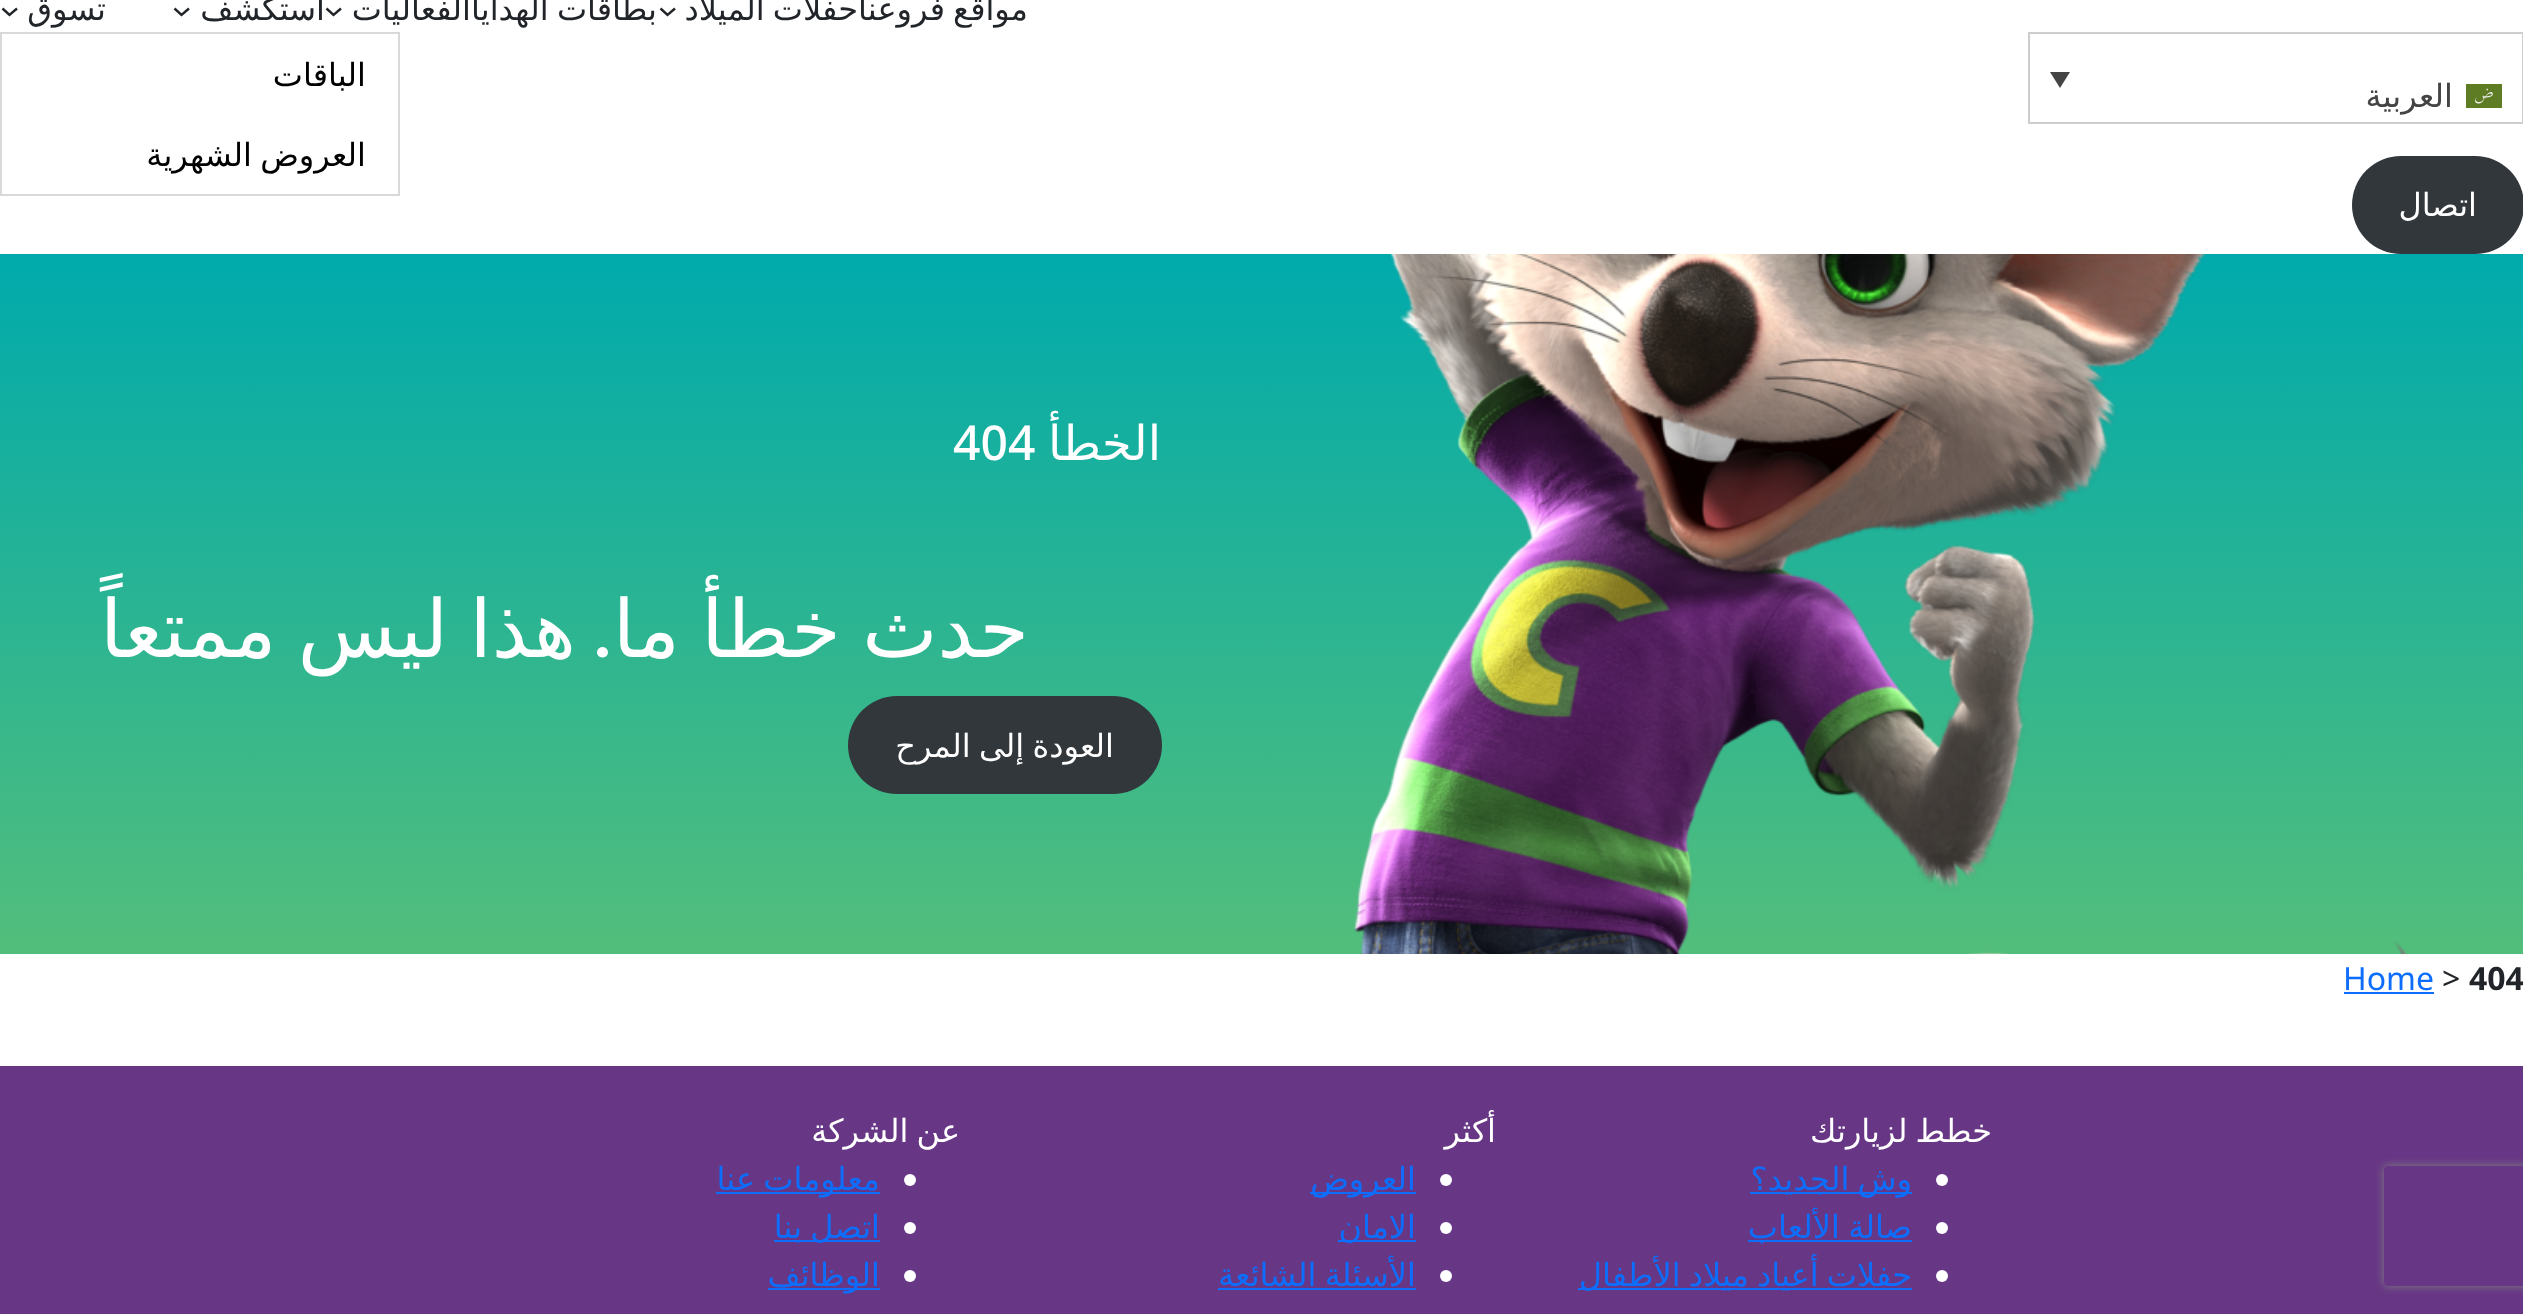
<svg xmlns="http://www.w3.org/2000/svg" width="2523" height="1314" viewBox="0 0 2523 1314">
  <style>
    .t1 { font: 32px DejaVu Sans; direction: rtl; fill: #444; }
    .t2 { font: 32px DejaVu Sans; direction: rtl; fill: #212529; }
    .t3 { font: 32px DejaVu Sans; direction: rtl; fill: #000; }
    .t4 { font: 32px DejaVu Sans; direction: rtl; fill: #fff; }
    .t5 { font: 48px DejaVu Sans; direction: rtl; fill: #fff; }
    .t6 { font: 500 48px Noto Sans; fill: #fff; }
    .t7 { font: 80px DejaVu Sans; direction: rtl; fill: #fff; }
    .t8 { font: 500 80px Roboto; direction: rtl; fill: #fff; }
    .t9 { font: bold 32px Noto Sans; fill: #212529; }
    .t10 { font: 32px Noto Sans; fill: #212529; }
    .t11 { font: 32px Noto Sans; fill: #0d6efd; }
    .t12 { font: 32px DejaVu Sans; direction: rtl; fill: #0d6efd; }
  </style>
  <defs>
    <linearGradient id="g1" gradientUnits="userSpaceOnUse" x1="1262" y1="254" x2="1262" y2="954"><stop offset="0" stop-color="#00aaac"/><stop offset="1" stop-color="#53be7b"/></linearGradient>
    <clipPath id="clip1"><path d="M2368 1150H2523V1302H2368ZM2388 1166H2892C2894 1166 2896 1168 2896 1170V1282C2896 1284 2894 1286 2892 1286H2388C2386 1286 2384 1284 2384 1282V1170C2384 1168 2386 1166 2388 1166Z" clip-rule="evenodd"/></clipPath>
  </defs>
  <rect width="100%" height="100%" fill="#fff"/>
  <rect x="2029" y="33" width="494" height="90" fill="none" stroke="#cdcdcd" stroke-width="2"/>
  <path d="M2050 72H2070L2060 88Z" fill="#444"/>
  <image x="2466" y="84" width="36" height="24" href="images/1.png"/>
  <text x="2453" y="107" class="t1">العربية</text>
  <text x="106" y="20" class="t2">تسوق</text>
  <path d="M2.5 8.5L9.5 15L17 8.5" fill="none" stroke="#212529" stroke-width="2.4"/>
  <rect x="1" y="33" width="398" height="162" fill="none" stroke="#d9d9d9" stroke-width="2"/>
  <text x="366" y="86" class="t3">الباقات</text>
  <text x="366" y="166" word-spacing="-2" class="t3">العروض الشهرية</text>
  <text x="1028" y="20" word-spacing="-2" class="t2">مواقع فروعنا</text>
  <text x="858" y="20" word-spacing="-2" class="t2">حفلات الميلاد</text>
  <path d="M660.5 8.5L667.5 15L675 8.5" fill="none" stroke="#212529" stroke-width="2.4"/>
  <text x="657" y="20" word-spacing="-2" class="t2">بطاقات الهدايا</text>
  <text x="471" y="20" class="t2">الفعاليات</text>
  <path d="M326.5 8.5L333.5 15L341 8.5" fill="none" stroke="#212529" stroke-width="2.4"/>
  <text x="325" y="20" class="t2">استكشف</text>
  <path d="M174.5 8.5L181.5 15L189 8.5" fill="none" stroke="#212529" stroke-width="2.4"/>
  <rect x="2352" y="156" width="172" height="98" rx="49" fill="#32373c"/>
  <text x="2477" y="216" class="t4">اتصال</text>
  <rect x="0" y="254" width="2523" height="700" fill="url(#g1)"/>
  <image x="1353" y="254" width="1053" height="700" href="images/2.png"/>
  <text x="1161" y="460" class="t5">الخطأ</text>
  <text x="953" y="460" class="t6">404</text>
  <text x="1029" y="657" word-spacing="-4" class="t7">حدث خطأ ما</text>
  <text x="614" y="657" class="t8">.</text>
  <text x="576" y="657" word-spacing="-4" class="t7">هذا ليس ممتعاً</text>
  <rect x="848" y="696" width="314" height="98" rx="49" fill="#32373c"/>
  <text x="1114" y="757" word-spacing="-2" class="t4">العودة إلى المرح</text>
  <text x="2469" y="990" class="t9">404</text>
  <text x="2442" y="990" class="t10">&gt;</text>
  <text x="2343" y="990" class="t11">Home</text>
  <rect x="2344" y="992" width="90" height="2" fill="#0d6efd"/>
  <rect x="0" y="1066" width="2523" height="248" fill="#673685"/>
  <text x="1992" y="1142" word-spacing="-2" class="t4">خطط لزيارتك</text>
  <circle cx="1942" cy="1180" r="6" fill="#fff"/>
  <rect x="1750" y="1192" width="162" height="2" fill="#0d6efd"/>
  <text x="1912" y="1190" word-spacing="-2" class="t12">وش الجديد؟</text>
  <circle cx="1942" cy="1228" r="6" fill="#fff"/>
  <rect x="1748" y="1240" width="164" height="2" fill="#0d6efd"/>
  <text x="1912" y="1238" word-spacing="-2" class="t12">صالة الألعاب</text>
  <circle cx="1942" cy="1276" r="6" fill="#fff"/>
  <rect x="1578" y="1288" width="334" height="2" fill="#0d6efd"/>
  <text x="1912" y="1286" word-spacing="-2" class="t12">حفلات أعياد ميلاد الأطفال</text>
  <text x="1496" y="1142" class="t4">أكثر</text>
  <circle cx="1446" cy="1180" r="6" fill="#fff"/>
  <rect x="1310" y="1192" width="106" height="2" fill="#0d6efd"/>
  <text x="1416" y="1190" class="t12">العروض</text>
  <circle cx="1446" cy="1228" r="6" fill="#fff"/>
  <rect x="1338" y="1240" width="78" height="2" fill="#0d6efd"/>
  <text x="1416" y="1238" class="t12">الامان</text>
  <circle cx="1446" cy="1276" r="6" fill="#fff"/>
  <text x="1416" y="1286" word-spacing="-2" class="t12">الأسئلة الشائعة</text>
  <rect x="1218" y="1288" width="198" height="2" fill="#0d6efd"/>
  <text x="960" y="1142" word-spacing="-2" class="t4">عن الشركة</text>
  <circle cx="910" cy="1180" r="6" fill="#fff"/>
  <rect x="716" y="1192" width="164" height="2" fill="#0d6efd"/>
  <text x="880" y="1190" word-spacing="-2" class="t12">معلومات عنا</text>
  <circle cx="910" cy="1228" r="6" fill="#fff"/>
  <rect x="774" y="1240" width="106" height="2" fill="#0d6efd"/>
  <text x="880" y="1238" word-spacing="-2" class="t12">اتصل بنا</text>
  <circle cx="910" cy="1276" r="6" fill="#fff"/>
  <rect x="768" y="1288" width="112" height="2" fill="#0d6efd"/>
  <text x="880" y="1286" class="t12">الوظائف</text>
  <g clip-path="url(#clip1)">
    <rect x="2384" y="1166" width="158" height="120" rx="4" fill="#808080" filter="blur(5px)"/>
  </g>
</svg>
